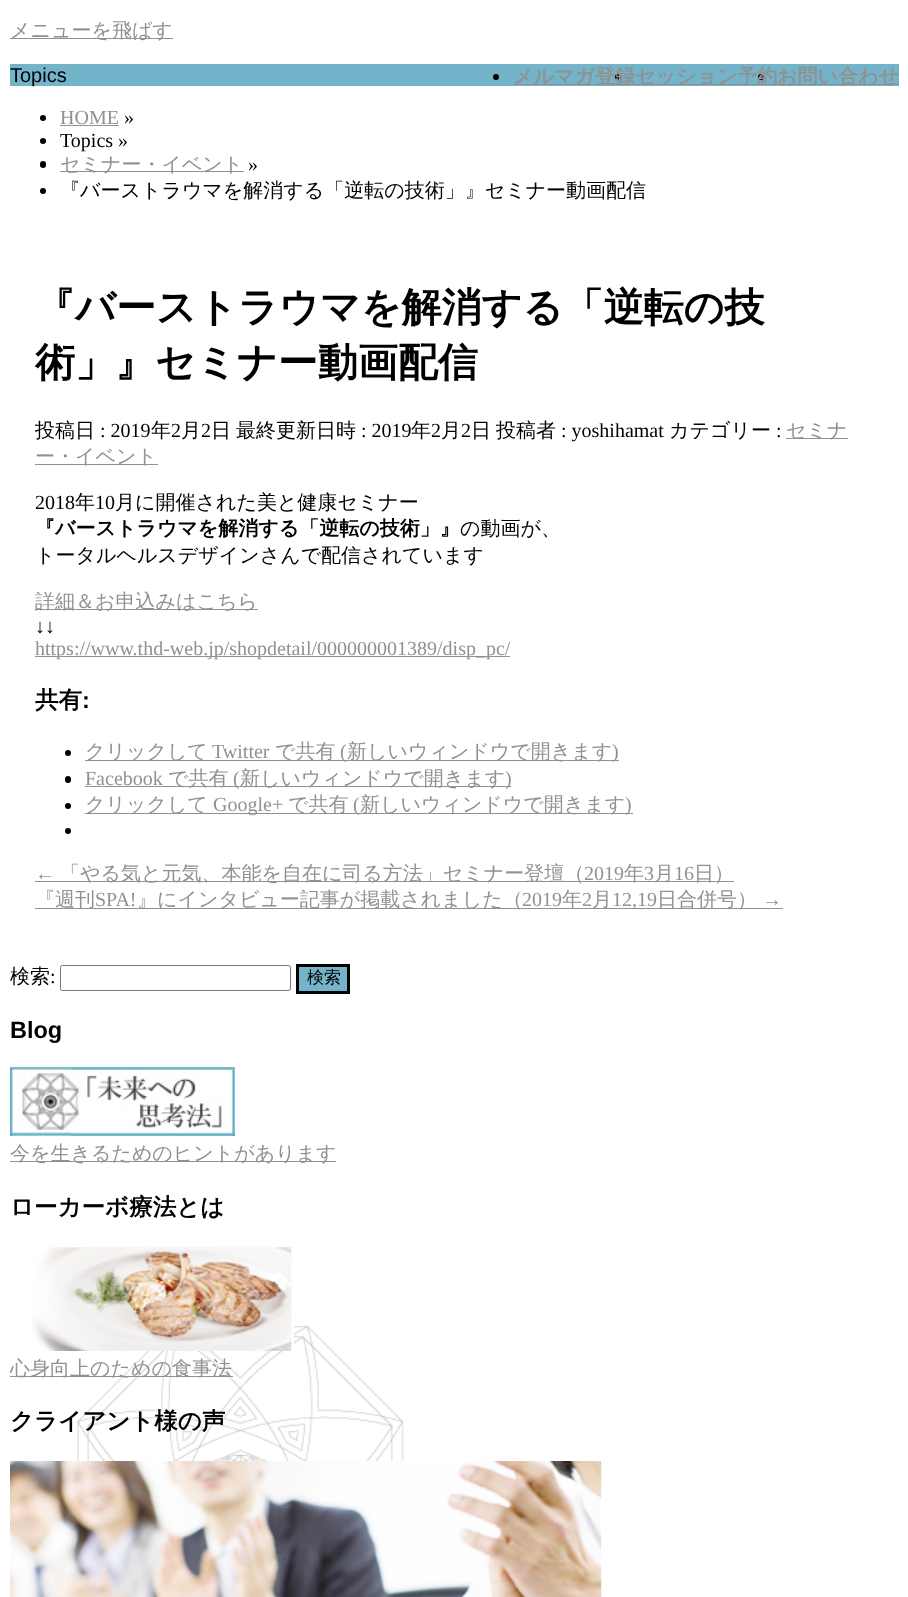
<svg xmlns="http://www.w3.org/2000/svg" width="908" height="1597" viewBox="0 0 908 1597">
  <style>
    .t1 { font: 500 20px WenQuanYi Zen Hei; fill: #919191; }
    .t2 { font: bold 20px WenQuanYi Zen Hei; fill: #919191; }
    .t3 { font: 20px Liberation Sans; fill: #000; }
    .t4 { font: 20px Liberation Serif; fill: #919191; }
    .t5 { font: 20px Liberation Serif; fill: #000; }
    .t6 { font: 500 20px WenQuanYi Zen Hei; fill: #000; }
    .t7 { font: bold 40px WenQuanYi Zen Hei; fill: #000; }
    .t8 { font: bold 20px WenQuanYi Zen Hei; fill: #000; }
    .t9 { font: bold 23.5px WenQuanYi Zen Hei; fill: #000; }
    .t10 { font: bold 23.5px Liberation Sans; fill: #000; }
    .t11 { font: 500 17px WenQuanYi Zen Hei; fill: #000; }
  </style>
  <rect width="100%" height="100%" fill="#fff"/>
  <image x="77" y="939" width="327" height="522" href="images/1.png"/>
  <rect x="10" y="38" width="163" height="1" fill="#919191"/>
  <text x="10" y="37" class="t1">メニューを飛ばす</text>
  <rect x="10" y="64" width="889" height="22" fill="#73b4cb"/>
  <circle cx="496" cy="77" r="3" fill="#000"/>
  <circle cx="618" cy="77" r="3" fill="#000"/>
  <rect x="513" y="84" width="386" height="1" fill="#919191"/>
  <text x="513" y="83" class="t2">メルマガ登録</text>
  <circle cx="761" cy="77" r="3" fill="#000"/>
  <text x="635" y="83" class="t2">セッション予約</text>
  <text x="777" y="83" class="t2">お問い合わせ</text>
  <text x="10" y="82" class="t3">Topics</text>
  <circle cx="43" cy="118" r="3" fill="#000"/>
  <text x="60" y="124" class="t4">HOME</text>
  <rect x="60" y="125" width="59" height="1" fill="#919191"/>
  <text x="124" y="124" class="t5">»</text>
  <circle cx="43" cy="141" r="3" fill="#000"/>
  <text x="60" y="147" class="t5">Topics »</text>
  <rect x="40" y="161" width="6" height="7" rx="3" fill="#000"/>
  <rect x="60" y="171" width="184" height="1" fill="#919191"/>
  <text x="60" y="171" class="t1">セミナー・イベント</text>
  <text x="248" y="171" class="t5">»</text>
  <circle cx="43" cy="191" r="3" fill="#000"/>
  <text x="60" y="197" class="t6">『バーストラウマを解消する「逆転の技術」』セミナー動画配信</text>
  <text x="35" y="321" class="t7">『バーストラウマを解消する「逆転の技</text>
  <text x="35" y="376" class="t7">術」』セミナー動画配信</text>
  <text x="35" y="437" class="t6">投稿日</text>
  <text x="100" y="437" class="t5">: 2019</text>
  <text x="151" y="437" class="t6">年</text>
  <text x="171" y="437" class="t5">2</text>
  <text x="181" y="437" class="t6">月</text>
  <text x="201" y="437" class="t5">2</text>
  <text x="211" y="437" class="t6">日</text>
  <text x="236" y="437" class="t6">最終更新日時</text>
  <text x="361" y="437" class="t5">: 2019</text>
  <text x="411" y="437" class="t6">年</text>
  <text x="431" y="437" class="t5">2</text>
  <text x="441" y="437" class="t6">月</text>
  <text x="461" y="437" class="t5">2</text>
  <text x="471" y="437" class="t6">日</text>
  <text x="496" y="437" class="t6">投稿者</text>
  <text x="561" y="437" class="t5">: yoshihamat</text>
  <text x="669" y="437" class="t6">カテゴリー</text>
  <text x="776" y="437" class="t5">:</text>
  <rect x="786" y="438" width="62" height="1" fill="#919191"/>
  <text x="786" y="437" class="t1">セミナ</text>
  <rect x="35" y="464" width="123" height="1" fill="#919191"/>
  <text x="35" y="463" class="t1">ー・イベント</text>
  <text x="35" y="509" class="t5">2018</text>
  <text x="75" y="509" class="t6">年</text>
  <text x="95" y="509" class="t5">10</text>
  <text x="115" y="509" class="t6">月に開催された美と健康セミナー</text>
  <text x="35" y="535" class="t8">『バーストラウマを解消する「逆転の技術」』</text>
  <text x="460" y="535" class="t6">の動画が、</text>
  <text x="35" y="562" class="t6">トータルヘルスデザインさんで配信されています</text>
  <rect x="35" y="609" width="223" height="1" fill="#919191"/>
  <text x="35" y="608" class="t1">詳細＆お申込みはこちら</text>
  <text x="35" y="633" class="t5">↓↓</text>
  <rect x="35" y="656" width="475" height="1" fill="#919191"/>
  <text x="35" y="655" class="t4">https://www.thd-web.jp/shopdetail/000000001389/disp_pc/</text>
  <text x="35" y="708" class="t9">共有</text>
  <text x="82" y="708" class="t10">:</text>
  <circle cx="68" cy="753" r="3" fill="#000"/>
  <rect x="85" y="760" width="534" height="1" fill="#919191"/>
  <text x="85" y="758" class="t1">クリックして</text>
  <text x="212" y="758" class="t4">Twitter</text>
  <text x="275" y="758" class="t1">で共有</text>
  <text x="340" y="758" class="t4">(</text>
  <text x="347" y="758" class="t1">新しいウィンドウで開きます</text>
  <text x="612" y="758" class="t4">)</text>
  <rect x="65" y="776" width="6" height="7" rx="3" fill="#000"/>
  <text x="85" y="785" class="t4">Facebook</text>
  <rect x="85" y="786" width="426" height="1" fill="#919191"/>
  <text x="168" y="785" class="t1">で共有</text>
  <text x="233" y="785" class="t4">(</text>
  <text x="240" y="785" class="t1">新しいウィンドウで開きます</text>
  <text x="505" y="785" class="t4">)</text>
  <circle cx="68" cy="806" r="3" fill="#000"/>
  <rect x="85" y="813" width="548" height="1" fill="#919191"/>
  <text x="85" y="811" class="t1">クリックして</text>
  <text x="213" y="811" class="t4">Google+</text>
  <text x="288" y="811" class="t1">で共有</text>
  <text x="353" y="811" class="t4">(</text>
  <text x="360" y="811" class="t1">新しいウィンドウで開きます</text>
  <text x="625" y="811" class="t4">)</text>
  <circle cx="68" cy="831" r="3" fill="#000"/>
  <text x="35" y="880" class="t4">←</text>
  <rect x="35" y="881" width="699" height="1" fill="#919191"/>
  <text x="60" y="880" class="t1">「やる気と元気、本能を自在に司る方法」セミナー登壇（</text>
  <text x="584" y="880" class="t4">2019</text>
  <text x="624" y="880" class="t1">年</text>
  <text x="644" y="880" class="t4">3</text>
  <text x="654" y="880" class="t1">月</text>
  <text x="674" y="880" class="t4">16</text>
  <text x="694" y="880" class="t1">日）</text>
  <rect x="35" y="908" width="748" height="1" fill="#919191"/>
  <text x="35" y="906" class="t1">『週刊</text>
  <text x="95" y="906" class="t4">SPA!</text>
  <text x="137" y="906" class="t1">』にインタビュー記事が掲載されました（</text>
  <text x="522" y="906" class="t4">2019</text>
  <text x="562" y="906" class="t1">年</text>
  <text x="582" y="906" class="t4">2</text>
  <text x="592" y="906" class="t1">月</text>
  <text x="612" y="906" class="t4">12,19</text>
  <text x="657" y="906" class="t1">日合併号）</text>
  <text x="762" y="906" class="t4">→</text>
  <text x="10" y="983" class="t6">検索</text>
  <text x="50" y="983" class="t5">:</text>
  <rect x="60.5" y="965.5" width="230" height="25" rx="2" fill="none" stroke="#767676"/>
  <rect x="297.5" y="965.5" width="51" height="27" fill="#73b4cb" stroke="#000" stroke-width="3"/>
  <text x="307" y="983" class="t11">検索</text>
  <text x="10" y="1038" class="t10">Blog</text>
  <image x="10" y="1067" width="225" height="69" href="images/2.png"/>
  <rect x="10" y="1161" width="326" height="1" fill="#919191"/>
  <text x="10" y="1160" class="t1">今を生きるためのヒントがあります</text>
  <text x="10" y="1215" class="t9">ローカーボ療法とは</text>
  <image x="32" y="1247" width="262" height="104" href="images/3.png"/>
  <rect x="10" y="1376" width="223" height="1" fill="#919191"/>
  <text x="10" y="1375" class="t1">心身向上のための食事法</text>
  <text x="10" y="1429" class="t9">クライアント様の声</text>
  <image x="10" y="1461" width="592" height="136" href="images/4.png"/>
</svg>
